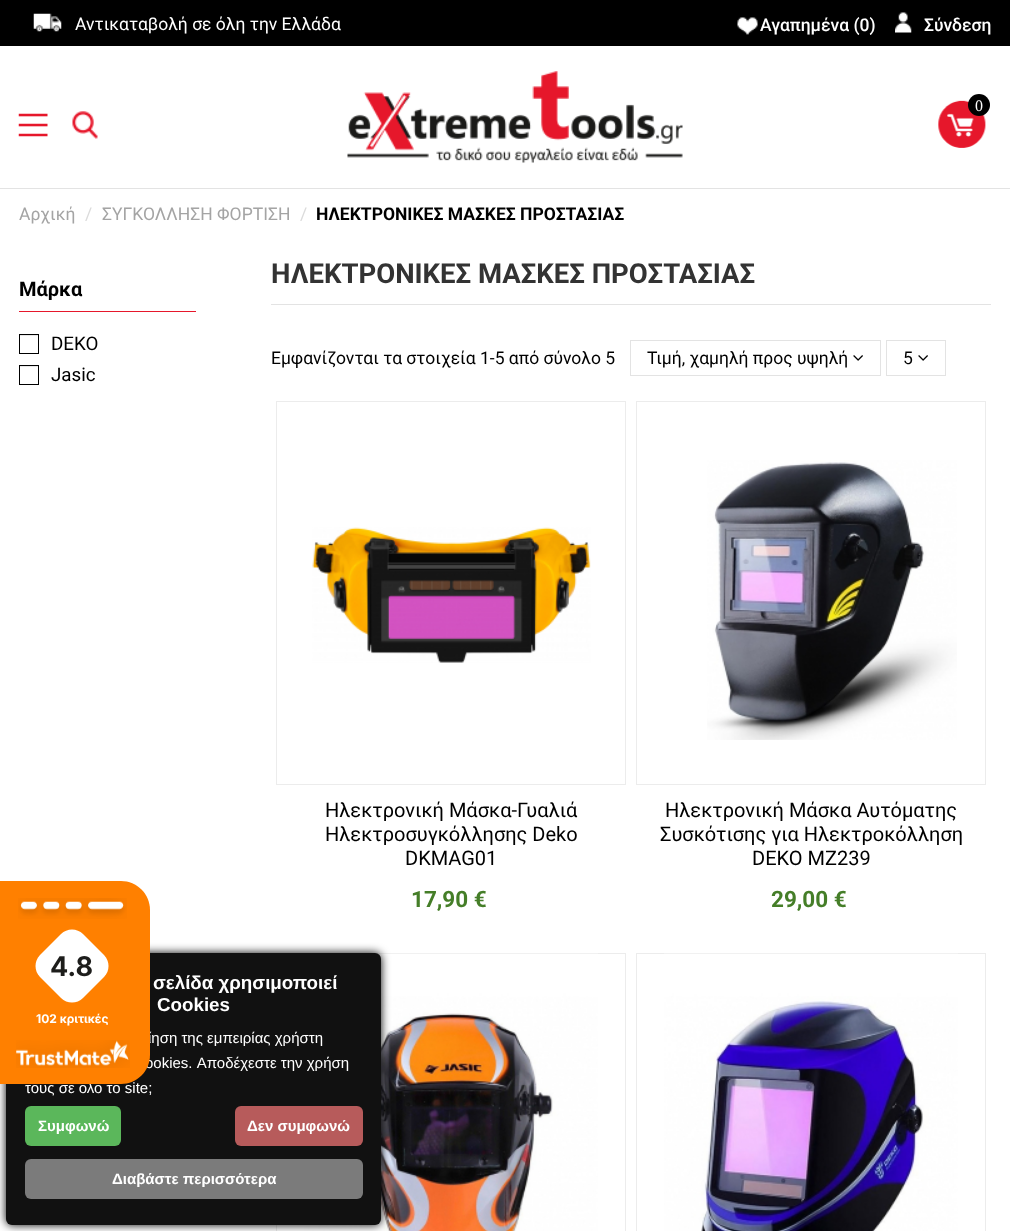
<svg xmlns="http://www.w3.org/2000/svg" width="1010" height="1231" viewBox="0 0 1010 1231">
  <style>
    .t1 { font: 17.5px Roboto; fill: #fff; }
    .t2 { font: 500 17.5px Roboto; fill: #fff; }
    .t3 { font: 16px Liberation Serif; fill: #fff; }
    .t4 { font: 17.5px Roboto; fill: #a4a4a4; }
    .t5 { font: 17.5px Roboto; fill: #dbdbdb; }
    .t6 { font: bold 17.5px Roboto; fill: #000; }
    .t7 { font: bold 27.5px Roboto; fill: #333; }
    .t8 { font: 17.5px Roboto; fill: #000; }
    .t9 { font: 20px Roboto; fill: #000; }
    .t10 { font: bold 22.5px Roboto; fill: #457e28; }
    .t11 { font: 15px Liberation Sans; fill: #fff; }
    .t12 { font: bold 27px Inter; fill: #1d1d1b; }
    .t13 { font: bold 12px Inter; fill: #fff; }
    .t14 { font: bold 20px Roboto; fill: #000; }
    .t15 { font: 18.75px Roboto; fill: #000; }
    .t16 { font: bold 18.75px Liberation Sans; fill: #fff; }
    .t17 { font: bold 15px Liberation Sans; fill: #fff; }
  </style>
  <rect width="100%" height="100%" fill="#fff"/>
  <rect x="0" y="0" width="1010" height="46" fill="#000"/>
  <image x="33" y="13" width="29" height="19" href="images/1.png"/>
  <text x="75" y="30" class="t1">Αντικαταβολή σε όλη την Ελλάδα</text>
  <image x="737" y="17" width="21" height="18" href="images/2.png"/>
  <text x="760" y="31" class="t2">Αγαπημένα (0)</text>
  <image x="895" y="12" width="17" height="21" href="images/3.png"/>
  <text x="924" y="31" class="t2">Σύνδεση</text>
  <rect x="0" y="188" width="1010" height="1" fill="#e3e3e3"/>
  <image x="347" y="71" width="336" height="92" href="images/4.png"/>
  <image x="938" y="100" width="48" height="48" href="images/5.png"/>
  <circle cx="979" cy="105" r="11" fill="#000"/>
  <text x="975" y="111" class="t3">0</text>
  <image x="18" y="113" width="30" height="24" href="images/6.png"/>
  <image x="72" y="111" width="26" height="28" href="images/7.png"/>
  <text x="19" y="220" class="t4">Αρχική</text>
  <text x="85" y="220" class="t5">/</text>
  <text x="102" y="220" class="t4">ΣΥΓΚΟΛΛΗΣΗ ΦΟΡΤΙΣΗ</text>
  <text x="300" y="220" class="t5">/</text>
  <text x="316" y="220" class="t6">ΗΛΕΚΤΡΟΝΙΚΕΣ ΜΑΣΚΕΣ ΠΡΟΣΤΑΣΙΑΣ</text>
  <rect x="271" y="304" width="720" height="1" fill="#e3e3e3"/>
  <text x="271" y="283" class="t7">ΗΛΕΚΤΡΟΝΙΚΕΣ ΜΑΣΚΕΣ ΠΡΟΣΤΑΣΙΑΣ</text>
  <text x="271" y="364" class="t8">Εμφανίζονται τα στοιχεία 1-5 από σύνολο 5</text>
  <rect x="630.5" y="340.5" width="250" height="35" fill="none" stroke="#e3e3e3"/>
  <text x="647" y="364" class="t8">Τιμή, χαμηλή προς υψηλή</text>
  <image x="853" y="355" width="10" height="6" href="images/8.png"/>
  <rect x="886.5" y="340.5" width="59" height="35" fill="none" stroke="#e3e3e3"/>
  <text x="903" y="364" class="t8">5</text>
  <image x="918" y="355" width="10" height="6" href="images/8.png"/>
  <rect x="276.5" y="401.5" width="349" height="383" fill="none" stroke="#ececec"/>
  <image x="312" y="527" width="279" height="136" href="images/9.png"/>
  <text x="325" y="817" class="t9">Ηλεκτρονική Μάσκα-Γυαλιά</text>
  <text x="325" y="841" class="t9">Ηλεκτροσυγκόλλησης Deko</text>
  <text x="405" y="865" class="t9">DKMAG01</text>
  <text x="411" y="907" class="t10">17,90 €</text>
  <rect x="636.5" y="401.5" width="349" height="383" fill="none" stroke="#ececec"/>
  <image x="707" y="460" width="250" height="280" href="images/10.png"/>
  <text x="665" y="817" class="t9">Ηλεκτρονική Μάσκα Αυτόματης</text>
  <text x="660" y="841" class="t9">Συσκότισης για Ηλεκτροκόλληση</text>
  <text x="752" y="865" class="t9">DEKO MZ239</text>
  <text x="771" y="907" class="t10">29,00 €</text>
  <rect x="276.5" y="953.5" width="349" height="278" fill="none" stroke="#ececec"/>
  <image x="304" y="953" width="294" height="278" href="images/11.png"/>
  <rect x="636.5" y="953.5" width="349" height="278" fill="none" stroke="#ececec"/>
  <image x="664" y="953" width="294" height="278" href="images/12.png"/>
  <rect x="6" y="953" width="375" height="272" rx="6" fill="#000" filter="blur(5px)"/>
  <rect x="6" y="953" width="375" height="272" rx="6" fill="#111"/>
  <text x="148" y="1043" class="t11">ίηση της εμπειρίας χρήστη</text>
  <text x="145" y="1068" class="t11">ookies. Αποδέχεστε την χρήση</text>
  <text x="25" y="1093" class="t11">τους σε όλο το site;</text>
  <path d="M-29 881H121C137 881 150 894 150 910V1055C150 1071 137 1084 121 1084H-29Z" fill="#ff8000"/>
  <image x="18" y="898" width="109" height="21" href="images/13.png"/>
  <path d="M83 934L104 955C110 961 110 971 104 977L83 998C77 1004 67 1004 61 998L40 977C34 971 34 961 40 955L61 934C67 928 77 928 83 934Z" fill="#fff"/>
  <text x="50" y="976" class="t12">4.8</text>
  <text x="36" y="1023" class="t13">102 κριτικές</text>
  <image x="16" y="1040" width="114" height="28" href="images/14.png"/>
  <rect x="19" y="311" width="177" height="1" fill="#e6172b"/>
  <text x="19" y="296" class="t14">Μάρκα</text>
  <rect x="20" y="335" width="18" height="1" fill="#e8e8e8"/>
  <rect x="19.5" y="334.5" width="19" height="19" fill="none" stroke="#000"/>
  <text x="51" y="350" class="t15">DEKO</text>
  <rect x="20" y="366" width="18" height="1" fill="#e8e8e8"/>
  <rect x="19.5" y="365.5" width="19" height="19" fill="none" stroke="#000"/>
  <text x="51" y="381" class="t15">Jasic</text>
  <text x="153" y="989" class="t16">σελίδα χρησιμοποιεί</text>
  <text x="157" y="1011" class="t16">Cookies</text>
  <rect x="25" y="1106" width="96" height="40" rx="6" fill="#5bb75b"/>
  <text x="38" y="1131" class="t17">Συμφωνώ</text>
  <rect x="235" y="1106" width="128" height="40" rx="6" fill="#b75b5b"/>
  <text x="247" y="1131" class="t17">Δεν συμφωνώ</text>
  <rect x="25" y="1159" width="338" height="40" rx="6" fill="#7b7b7b"/>
  <text x="112" y="1184" class="t17">Διαβάστε περισσότερα</text>
</svg>
